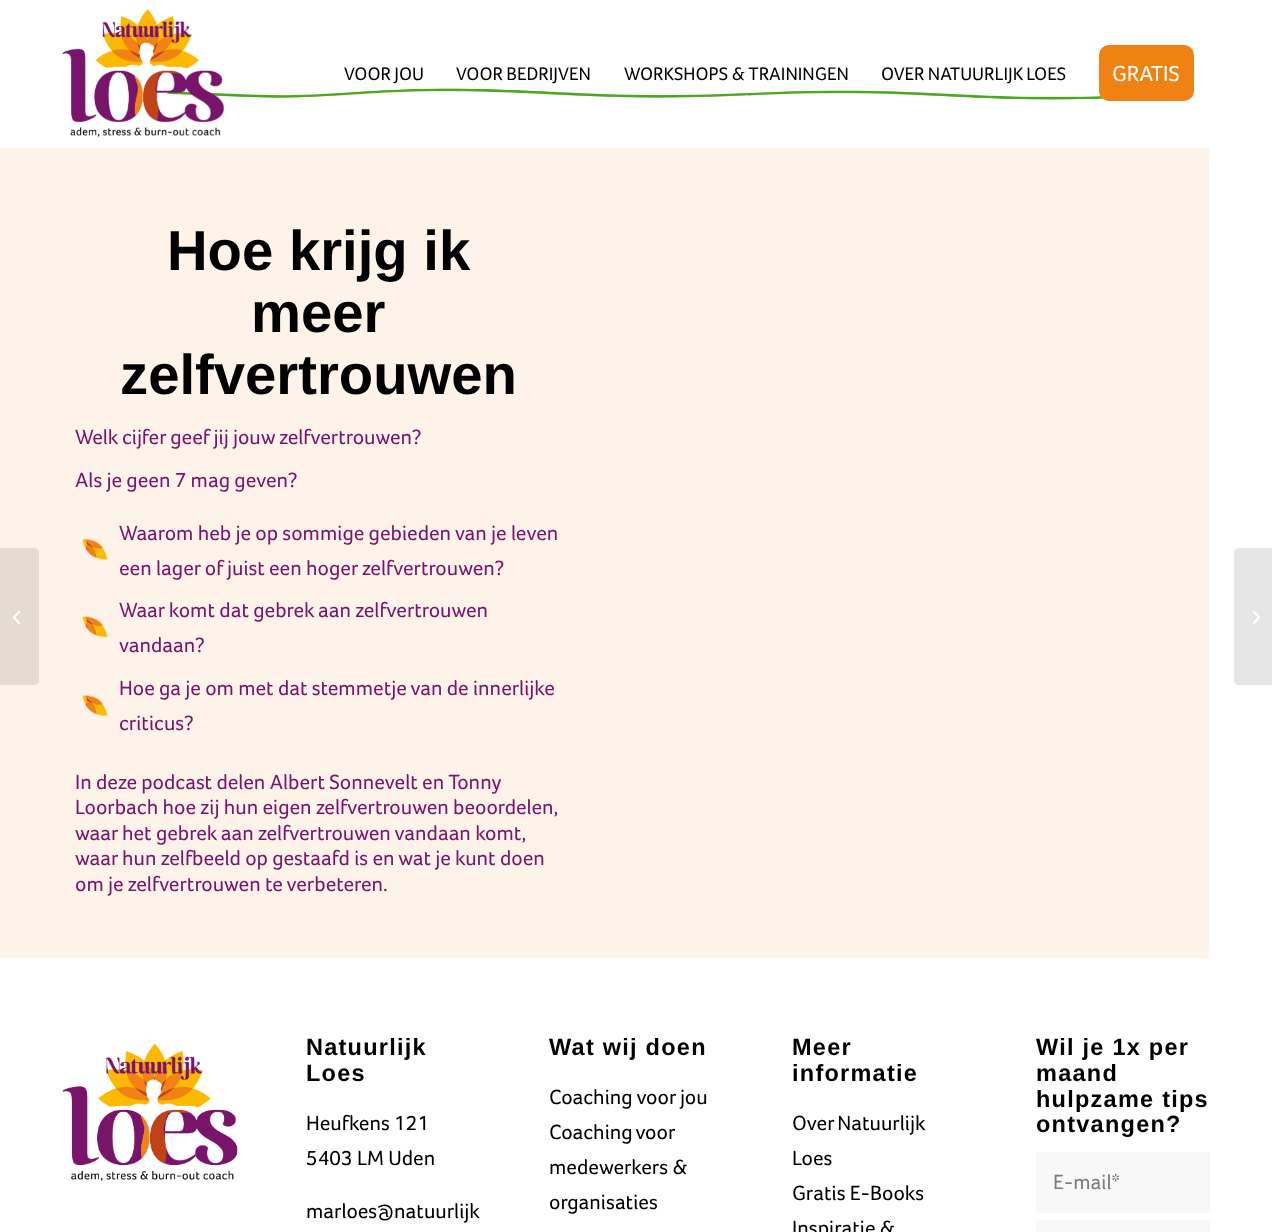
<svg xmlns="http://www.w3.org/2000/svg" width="1272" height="1232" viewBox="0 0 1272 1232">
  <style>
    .t1 { font: 18.75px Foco; fill: #000; }
    .t2 { font: 22.5px Foco; fill: #fff; }
    .t3 { font: bold 56.25px Liberation Sans; fill: #000; }
    .t4 { font: 21.25px Foco; fill: #79146a; }
    .t5 { font: bold 23.5px Liberation Sans; letter-spacing: 1.25px; fill: #000; }
    .t6 { font: 21.25px Foco; fill: #000; }
    .t7 { font: 21.25px Foco; fill: #7c7c7c; }
  </style>
  <defs>
    <clipPath id="clip1"><rect x="1035" y="1015" width="175" height="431"/></clipPath>
  </defs>
  <rect width="100%" height="100%" fill="#fff"/>
  <image x="167" y="88" width="936" height="12" href="images/2.png"/>
  <image x="62" y="9" width="162" height="128" href="images/1.png"/>
  <text x="344" y="80" class="t1">VOOR JOU</text>
  <text x="456" y="80" class="t1">VOOR BEDRIJVEN</text>
  <text x="624" y="80" class="t1">WORKSHOPS &amp; TRAININGEN</text>
  <text x="881" y="80" class="t1">OVER NATUURLIJK LOES</text>
  <rect x="1100.5" y="46.5" width="92" height="53" rx="8.5" fill="#f08113" stroke="#f08113" stroke-width="3"/>
  <text x="1112" y="81" class="t2">GRATIS</text>
  <rect x="0" y="148" width="1209" height="810" fill="#fef3e8"/>
  <path d="M0 548H34C37 548 39 550 39 553V680C39 683 37 685 34 685H0Z" fill="#e5dbd1"/>
  <image x="13" y="610" width="7" height="15" href="images/3.png"/>
  <text x="167" y="270" class="t3">Hoe krijg ik</text>
  <text x="251" y="332" class="t3">meer</text>
  <text x="120" y="394" class="t3">zelfvertrouwen</text>
  <text x="75" y="444" class="t4">Welk cijfer geef jij jouw zelfvertrouwen?</text>
  <text x="75" y="487" class="t4">Als je geen 7 mag geven?</text>
  <image x="82" y="538" width="26" height="22" href="images/4.png"/>
  <text x="119" y="540" class="t4">Waarom heb je op sommige gebieden van je leven</text>
  <text x="119" y="575" class="t4">een lager of juist een hoger zelfvertrouwen?</text>
  <image x="82" y="616" width="26" height="22" href="images/5.png"/>
  <text x="119" y="617" class="t4">Waar komt dat gebrek aan zelfvertrouwen</text>
  <text x="119" y="652" class="t4">vandaan?</text>
  <image x="82" y="695" width="26" height="22" href="images/6.png"/>
  <text x="119" y="695" class="t4">Hoe ga je om met dat stemmetje van de innerlijke</text>
  <text x="119" y="730" class="t4">criticus?</text>
  <text x="75" y="789" class="t4">In deze podcast delen Albert Sonnevelt en Tonny</text>
  <text x="75" y="814" class="t4">Loorbach hoe zij hun eigen zelfvertrouwen beoordelen,</text>
  <text x="75" y="840" class="t4">waar het gebrek aan zelfvertrouwen vandaan komt,</text>
  <text x="75" y="865" class="t4">waar hun zelfbeeld op gestaafd is en wat je kunt doen</text>
  <text x="75" y="891" class="t4">om je zelfvertrouwen te verbeteren.</text>
  <image x="62" y="1044" width="176" height="137" href="images/7.png"/>
  <text x="306" y="1055" class="t5">Natuurlijk</text>
  <text x="306" y="1081" class="t5">Loes</text>
  <text x="306" y="1130" class="t6">Heufkens 121</text>
  <text x="306" y="1165" class="t6">5403 LM Uden</text>
  <text x="306" y="1218" class="t6">marloes@natuurlijk</text>
  <text x="549" y="1055" class="t5">Wat wij doen</text>
  <text x="549" y="1104" class="t6">Coaching voor jou</text>
  <text x="549" y="1139" word-spacing="-1" class="t6">Coaching voor</text>
  <text x="549" y="1174" class="t6">medewerkers &amp;</text>
  <text x="549" y="1209" class="t6">organisaties</text>
  <text x="792" y="1055" class="t5">Meer</text>
  <text x="792" y="1081" class="t5">informatie</text>
  <text x="792" y="1130" word-spacing="-1" class="t6">Over Natuurlijk</text>
  <text x="792" y="1165" class="t6">Loes</text>
  <text x="792" y="1200" class="t6">Gratis E-Books</text>
  <text x="792" y="1235" class="t6">Inspiratie &amp;</text>
  <text x="1036" y="1055" class="t5">Wil je 1x per</text>
  <text x="1036" y="1081" class="t5">maand</text>
  <text x="1036" y="1107" class="t5">hulpzame tips</text>
  <text x="1036" y="1132" class="t5">ontvangen?</text>
  <path d="M1037.5 1151H1210V1214H1037.5C1036 1214 1035 1213 1035 1211.5V1153.5C1035 1152 1036 1151 1037.5 1151Z" fill="#f8f8f8"/>
  <g clip-path="url(#clip1)">
    <rect x="1035.5" y="1151.5" width="177" height="62" rx="2" fill="none" stroke="#fff"/>
  </g>
  <text x="1053" y="1189" class="t7">E-mail*</text>
  <path d="M1037.5 1219H1210V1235H1037.5C1036 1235 1035 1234 1035 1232.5V1221.5C1035 1220 1036 1219 1037.5 1219Z" fill="#f8f8f8"/>
  <g clip-path="url(#clip1)">
    <rect x="1035.5" y="1219.5" width="177" height="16" rx="2" fill="none" stroke="#fff"/>
  </g>
  <path d="M1239 548H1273V685H1239C1236 685 1234 683 1234 680V553C1234 550 1236 548 1239 548Z" fill="#e6e6e6"/>
  <image x="1253" y="610" width="7" height="15" href="images/8.png"/>
</svg>
